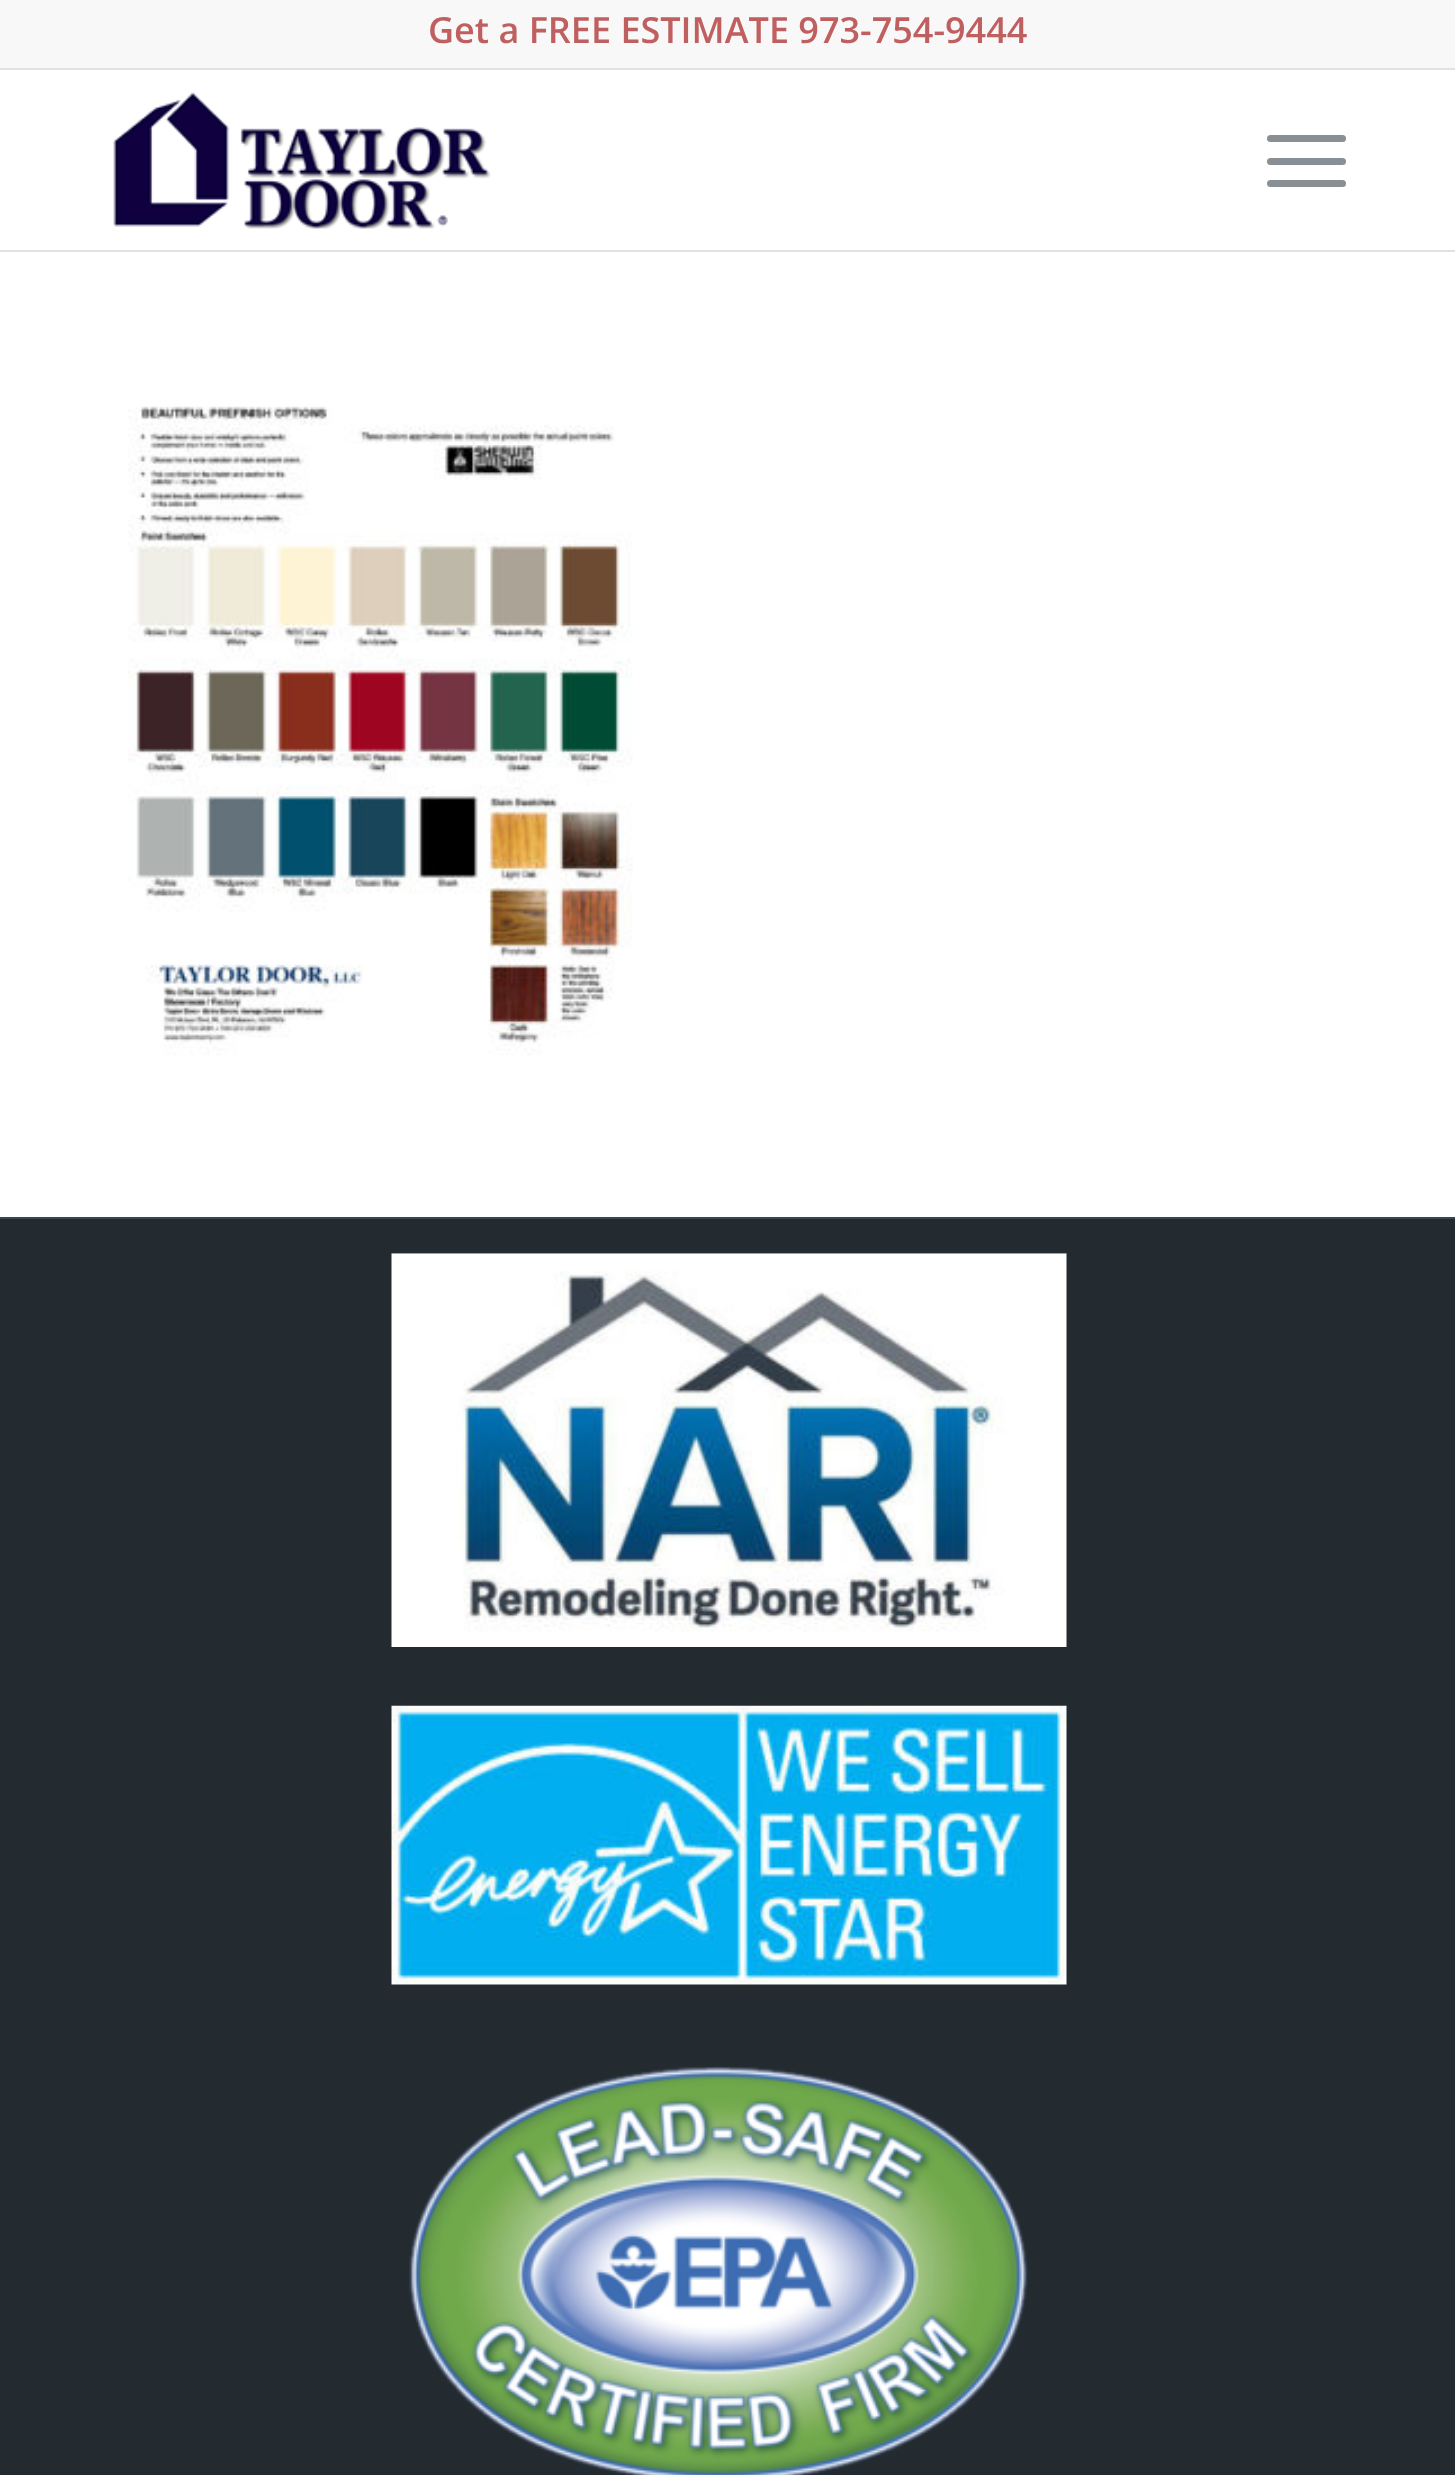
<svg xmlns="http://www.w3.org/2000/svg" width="1455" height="2475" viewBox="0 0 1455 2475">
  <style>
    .t1 { font: 600 36px Open Sans; fill: #c05f5f; }
  </style>
  <rect width="100%" height="100%" fill="#fff"/>
  <rect x="0" y="0" width="1455" height="68" fill="#f8f8f8"/>
  <rect x="0" y="68" width="1455" height="2" fill="#e1e1e1"/>
  <text x="428" y="43" class="t1">Get a FREE ESTIMATE 973-754-9444</text>
  <rect x="0" y="250" width="1455" height="2" fill="#e1e1e1"/>
  <image x="113" y="92" width="378" height="137" href="images/1.png"/>
  <rect x="1267" y="158" width="79" height="7" rx="3.5" fill="#889095"/>
  <rect x="1267" y="135" width="79" height="7" rx="3.5" fill="#889095"/>
  <rect x="1267" y="180" width="79" height="7" rx="3.5" fill="#889095"/>
  <image x="128" y="406" width="505" height="650" href="images/2.png"/>
  <rect x="0" y="1219" width="1455" height="1256" fill="#232b30"/>
  <rect x="0" y="1217" width="1455" height="2" fill="#384852"/>
  <image x="391" y="1253" width="676" height="394" href="images/3.png"/>
  <image x="391" y="1705" width="676" height="280" href="images/4.png"/>
  <image x="409" y="2066" width="619" height="409" href="images/5.png"/>
</svg>
